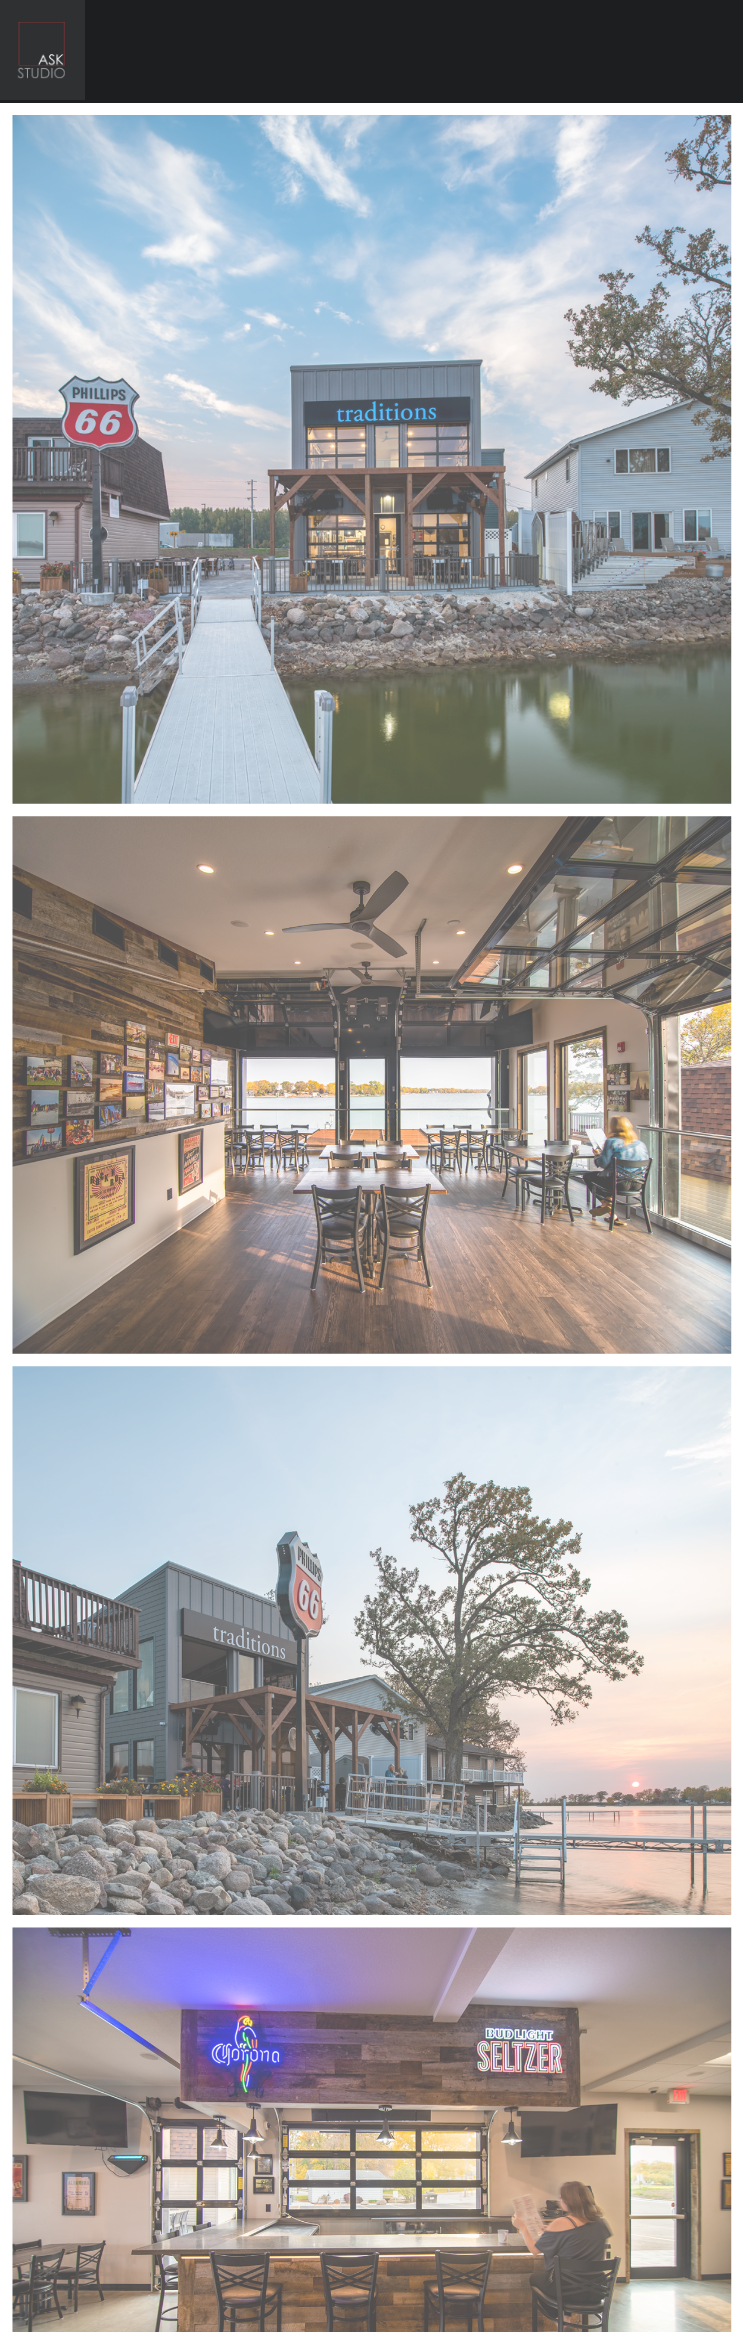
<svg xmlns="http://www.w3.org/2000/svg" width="743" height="2332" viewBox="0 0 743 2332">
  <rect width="100%" height="100%" fill="#fff"/>
  <rect x="0" y="0" width="743" height="103" fill="#1d1e1f"/>
  <rect x="0" y="0" width="85" height="100" fill="#2e3032"/>
  <image x="17" y="21" width="48" height="58" href="images/1.png"/>
  <image x="12" y="115" width="720" height="689" href="images/2.png"/>
  <image x="12" y="816" width="720" height="538" href="images/3.png"/>
  <image x="12" y="1366" width="720" height="549" href="images/4.png"/>
  <image x="12" y="1927" width="720" height="405" href="images/5.png"/>
</svg>
